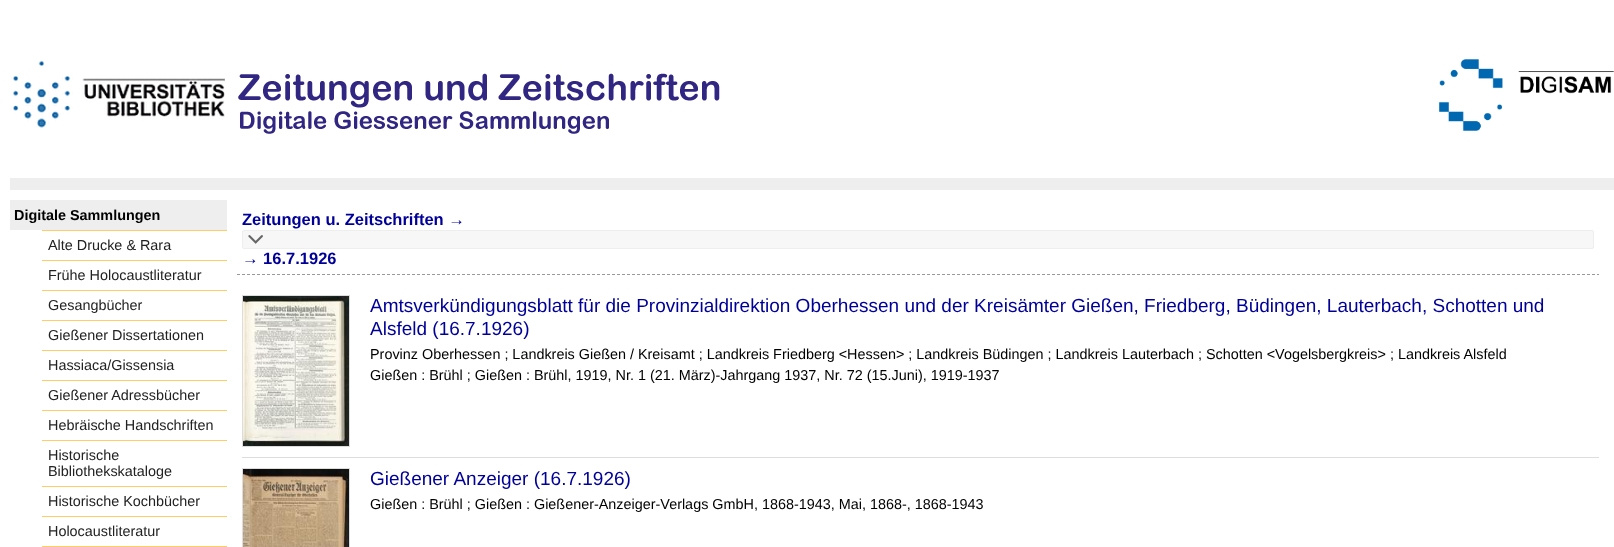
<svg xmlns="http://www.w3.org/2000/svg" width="1614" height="547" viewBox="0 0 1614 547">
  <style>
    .t1 { font: bold 14.4px Liberation Sans; fill: #000; }
    .t2 { font: 14.4px Liberation Sans; fill: #222; }
    .t3 { font: bold 16.5px Liberation Sans; fill: #009; }
    .t4 { font: 19px Liberation Sans; fill: #009; }
    .t5 { font: 14.4px Liberation Sans; fill: #000; }
  </style>
  <rect width="100%" height="100%" fill="#fff"/>
  <rect x="10" y="178" width="1604" height="12" fill="#eee"/>
  <image x="11" y="60" width="214" height="68" href="images/1.png"/>
  <image x="238" y="73" width="482" height="61" href="images/2.png"/>
  <image x="1439" y="59" width="175" height="72" href="images/3.png"/>
  <rect x="10" y="200" width="217" height="30" fill="#eee"/>
  <text x="14" y="220" class="t1">Digitale Sammlungen</text>
  <rect x="42" y="230" width="185" height="1" fill="#fc6"/>
  <text x="48" y="250" class="t2">Alte Drucke &amp; Rara</text>
  <rect x="42" y="260" width="185" height="1" fill="#fc6"/>
  <text x="48" y="280" class="t2">Frühe Holocaustliteratur</text>
  <rect x="42" y="290" width="185" height="1" fill="#fc6"/>
  <text x="48" y="310" class="t2">Gesangbücher</text>
  <rect x="42" y="320" width="185" height="1" fill="#fc6"/>
  <text x="48" y="340" class="t2">Gießener Dissertationen</text>
  <rect x="42" y="350" width="185" height="1" fill="#fc6"/>
  <text x="48" y="370" class="t2">Hassiaca/Gissensia</text>
  <rect x="42" y="380" width="185" height="1" fill="#fc6"/>
  <text x="48" y="400" class="t2">Gießener Adressbücher</text>
  <rect x="42" y="410" width="185" height="1" fill="#fc6"/>
  <text x="48" y="430" class="t2">Hebräische Handschriften</text>
  <rect x="42" y="440" width="185" height="1" fill="#fc6"/>
  <text x="48" y="460" class="t2">Historische</text>
  <text x="48" y="476" class="t2">Bibliothekskataloge</text>
  <rect x="42" y="486" width="185" height="1" fill="#fc6"/>
  <text x="48" y="506" class="t2">Historische Kochbücher</text>
  <rect x="42" y="516" width="185" height="1" fill="#fc6"/>
  <text x="48" y="536" class="t2">Holocaustliteratur</text>
  <rect x="42" y="546" width="185" height="1" fill="#fc6"/>
  <path d="M237 274.5H1599" fill="none" stroke="#999" stroke-dasharray="3 2"/>
  <text x="242" y="225" class="t3">Zeitungen u. Zeitschriften →</text>
  <rect x="242.5" y="230.5" width="1351" height="18" rx="1.5" fill="#f7f7f8" stroke="#eee"/>
  <image x="248" y="235" width="15" height="9" href="images/4.png"/>
  <text x="242" y="264" class="t3">→ 16.7.1926</text>
  <rect x="242.5" y="295.5" width="107" height="151" fill="none" stroke="#ddd"/>
  <image x="243" y="296" width="106" height="150" href="images/5.png"/>
  <text x="370" y="312" class="t4">Amtsverkündigungsblatt für die Provinzialdirektion Oberhessen und der Kreisämter Gießen, Friedberg, Büdingen, Lauterbach, Schotten und</text>
  <text x="370" y="335" class="t4">Alsfeld (16.7.1926)</text>
  <text x="370" y="359" class="t5">Provinz Oberhessen ; Landkreis Gießen / Kreisamt ; Landkreis Friedberg &lt;Hessen&gt; ; Landkreis Büdingen ; Landkreis Lauterbach ; Schotten &lt;Vogelsbergkreis&gt; ; Landkreis Alsfeld</text>
  <text x="370" y="380" class="t5">Gießen : Brühl ; Gießen : Brühl, 1919, Nr. 1 (21. März)-Jahrgang 1937, Nr. 72 (15.Juni), 1919-1937</text>
  <rect x="242" y="457" width="1357" height="1" fill="#ddd"/>
  <rect x="242.5" y="468.5" width="107" height="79" fill="none" stroke="#ddd"/>
  <image x="243" y="469" width="106" height="78" href="images/6.png"/>
  <text x="370" y="485" class="t4">Gießener Anzeiger (16.7.1926)</text>
  <text x="370" y="509" class="t5">Gießen : Brühl ; Gießen : Gießener-Anzeiger-Verlags GmbH, 1868-1943, Mai, 1868-, 1868-1943</text>
</svg>
